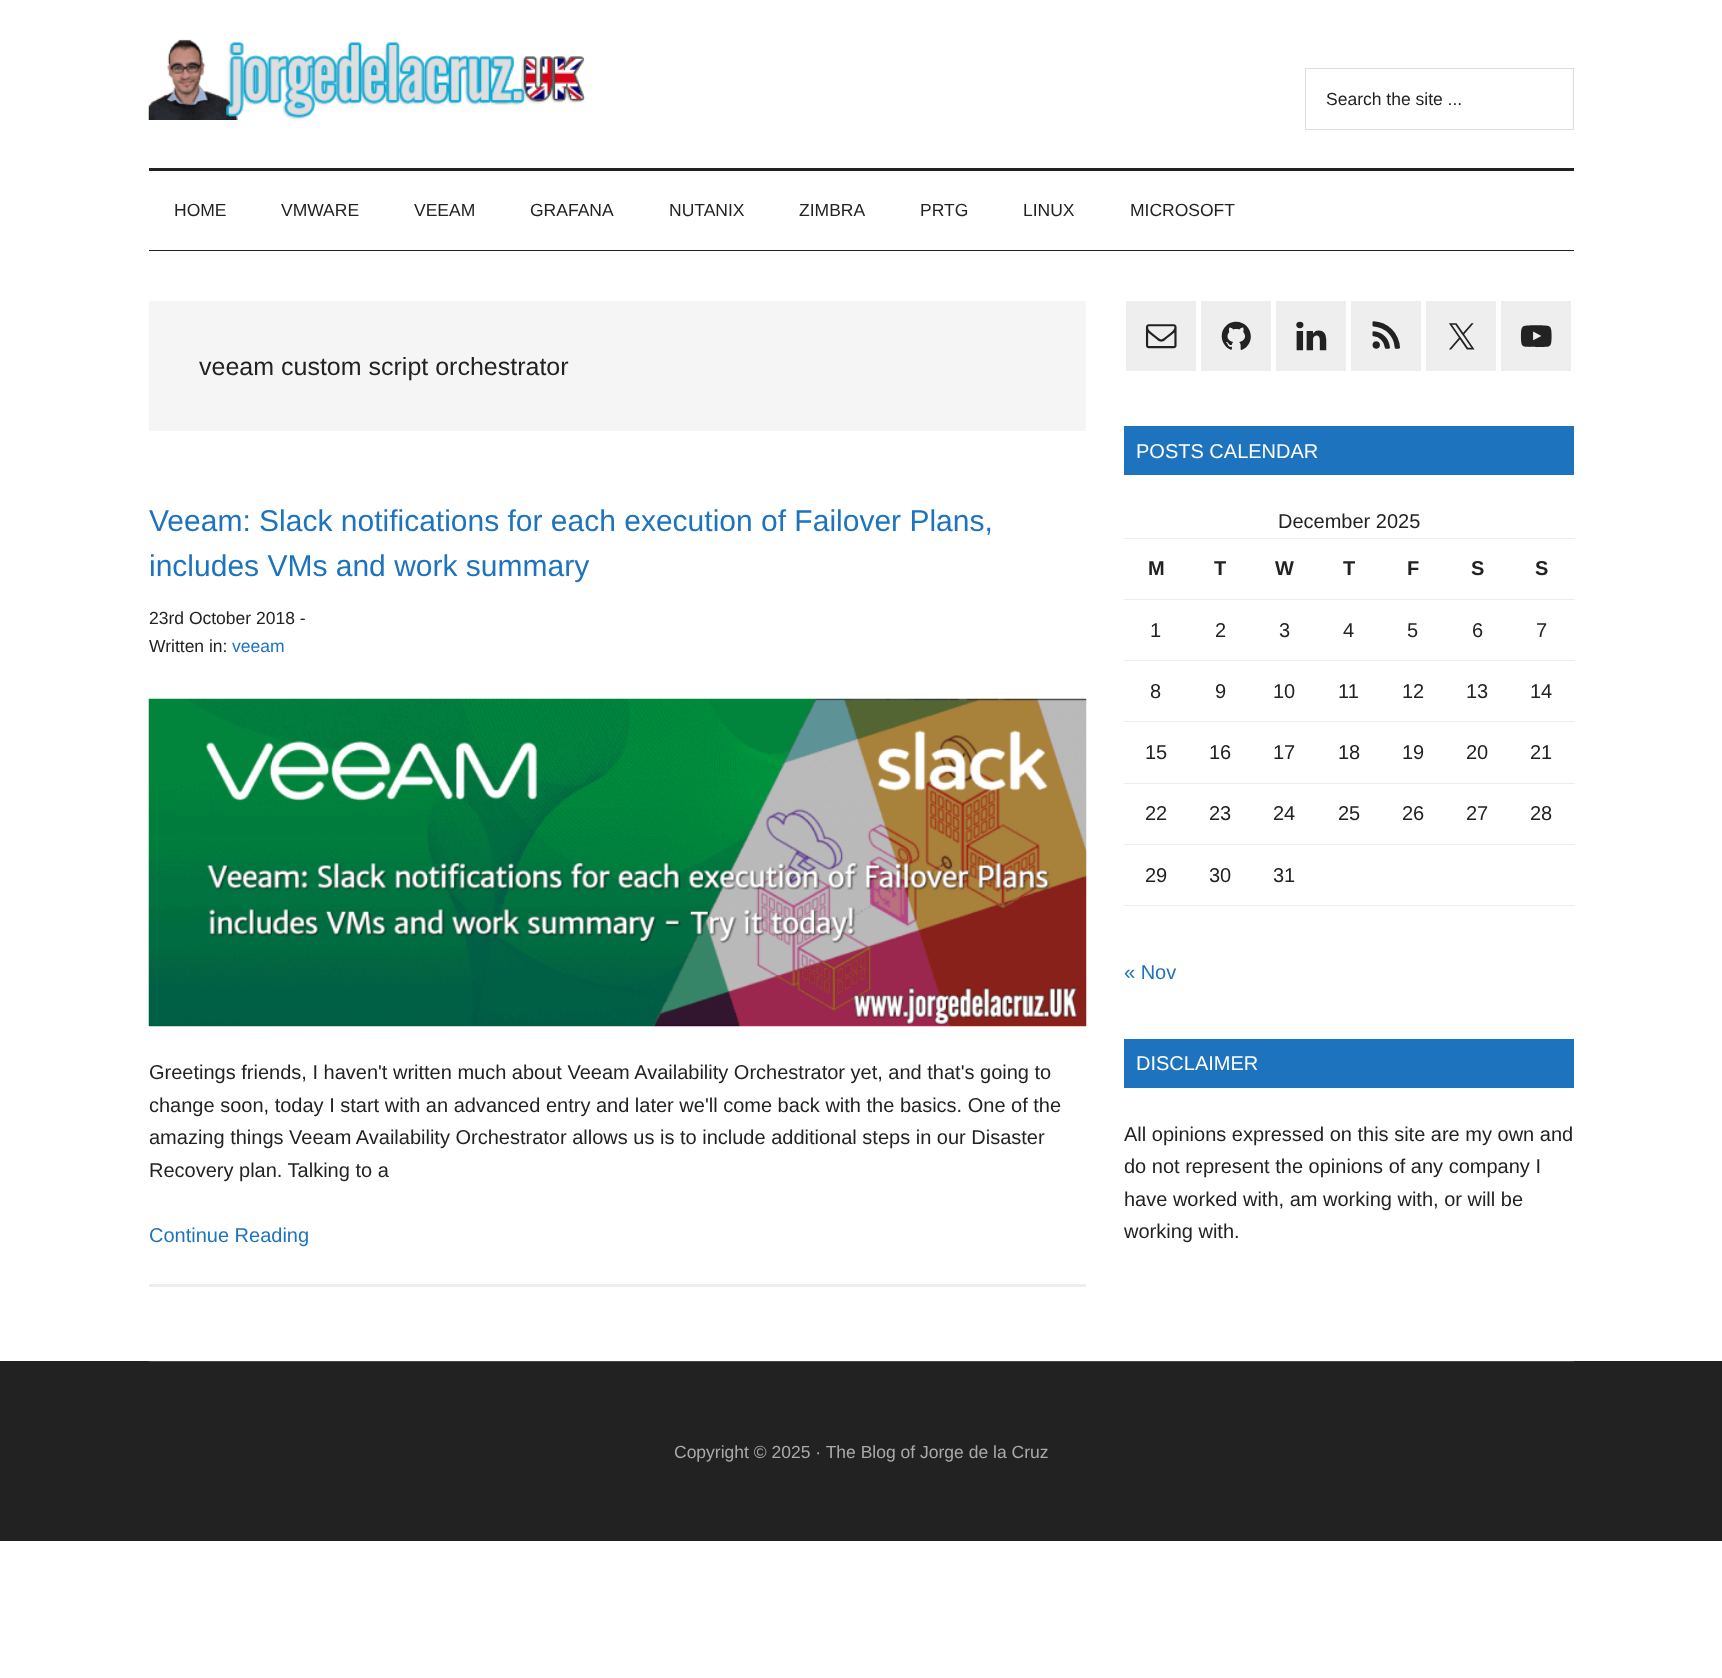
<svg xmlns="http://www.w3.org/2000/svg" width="1722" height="1678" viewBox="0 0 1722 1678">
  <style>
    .t1 { font: 17.5px Liberation Sans; fill: #222; }
    .t2 { font: 25px Liberation Sans; fill: #222; }
    .t3 { font: 30px Liberation Sans; fill: #1e73be; }
    .t4 { font: 17.5px Liberation Sans; fill: #1e73be; }
    .t5 { font: 20px Liberation Sans; fill: #222; }
    .t6 { font: 20px Liberation Sans; fill: #1e73be; }
    .t7 { font: 20px Liberation Sans; fill: #fff; }
    .t8 { font: bold 20px Liberation Sans; fill: #222; }
    .t9 { font: 17.5px Liberation Sans; fill: #aaa; }
  </style>
  <rect width="100%" height="100%" fill="#fff"/>
  <rect x="149" y="168" width="1425" height="3" fill="#222"/>
  <image x="148" y="39" width="437" height="81" href="images/1.png"/>
  <rect x="1305.5" y="68.5" width="268" height="61" fill="none" stroke="#ddd"/>
  <text x="1326" y="105" class="t1">Search the site ...</text>
  <rect x="149" y="250" width="1425" height="1" fill="#222"/>
  <text x="174" y="216" class="t1">HOME</text>
  <text x="281" y="216" class="t1">VMWARE</text>
  <text x="414" y="216" class="t1">VEEAM</text>
  <text x="530" y="216" class="t1">GRAFANA</text>
  <text x="669" y="216" class="t1">NUTANIX</text>
  <text x="799" y="216" class="t1">ZIMBRA</text>
  <text x="920" y="216" class="t1">PRTG</text>
  <text x="1023" y="216" class="t1">LINUX</text>
  <text x="1130" y="216" class="t1">MICROSOFT</text>
  <rect x="149" y="301" width="937" height="130" fill="#f5f5f5"/>
  <text x="199" y="375" class="t2">veeam custom script orchestrator</text>
  <rect x="149" y="1284" width="937" height="3" fill="#eee"/>
  <text x="149" y="531" class="t3">Veeam: Slack notifications for each execution of Failover Plans,</text>
  <text x="149" y="576" class="t3">includes VMs and work summary</text>
  <text x="149" y="624" class="t1">23rd October 2018 -</text>
  <text x="149" y="652" class="t1">Written in:</text>
  <text x="232" y="652" class="t4">veeam</text>
  <image x="148" y="698" width="939" height="329" href="images/2.png"/>
  <text x="149" y="1079" class="t5">Greetings friends, I haven't written much about Veeam Availability Orchestrator yet, and that's going to</text>
  <text x="149" y="1112" class="t5">change soon, today I start with an advanced entry and later we'll come back with the basics. One of the</text>
  <text x="149" y="1144" class="t5">amazing things Veeam Availability Orchestrator allows us is to include additional steps in our Disaster</text>
  <text x="149" y="1177" class="t5">Recovery plan. Talking to a</text>
  <text x="149" y="1242" class="t6">Continue Reading</text>
  <rect x="1126" y="301" width="70" height="70" fill="#eee"/>
  <image x="1145" y="324" width="32" height="25" href="images/3.png"/>
  <rect x="1201" y="301" width="70" height="70" fill="#eee"/>
  <image x="1221" y="321" width="30" height="29" href="images/4.png"/>
  <rect x="1276" y="301" width="70" height="70" fill="#eee"/>
  <image x="1296" y="321" width="31" height="30" href="images/5.png"/>
  <rect x="1351" y="301" width="70" height="70" fill="#eee"/>
  <image x="1372" y="321" width="28" height="28" href="images/6.png"/>
  <rect x="1426" y="301" width="70" height="70" fill="#eee"/>
  <image x="1449" y="323" width="26" height="27" href="images/7.png"/>
  <rect x="1501" y="301" width="70" height="70" fill="#eee"/>
  <image x="1520" y="325" width="32" height="23" href="images/8.png"/>
  <rect x="1124" y="426" width="450" height="49" fill="#1e73be"/>
  <text x="1136" y="458" class="t7">POSTS CALENDAR</text>
  <text x="1278" y="528" class="t5">December 2025</text>
  <rect x="1124" y="538" width="451" height="1" fill="#eee"/>
  <text x="1148" y="575" class="t8">M</text>
  <text x="1214" y="575" class="t8">T</text>
  <text x="1275" y="575" class="t8">W</text>
  <text x="1343" y="575" class="t8">T</text>
  <text x="1407" y="575" class="t8">F</text>
  <text x="1471" y="575" class="t8">S</text>
  <text x="1535" y="575" class="t8">S</text>
  <rect x="1124" y="905" width="451" height="1" fill="#eee"/>
  <rect x="1124" y="599" width="451" height="1" fill="#eee"/>
  <text x="1150" y="637" class="t5">1</text>
  <text x="1215" y="637" class="t5">2</text>
  <text x="1279" y="637" class="t5">3</text>
  <text x="1343" y="637" class="t5">4</text>
  <text x="1407" y="637" class="t5">5</text>
  <text x="1472" y="637" class="t5">6</text>
  <text x="1536" y="637" class="t5">7</text>
  <rect x="1124" y="660" width="451" height="1" fill="#eee"/>
  <text x="1150" y="698" class="t5">8</text>
  <text x="1215" y="698" class="t5">9</text>
  <text x="1273" y="698" class="t5">10</text>
  <text x="1338" y="698" class="t5">11</text>
  <text x="1402" y="698" class="t5">12</text>
  <text x="1466" y="698" class="t5">13</text>
  <text x="1530" y="698" class="t5">14</text>
  <rect x="1124" y="721" width="451" height="1" fill="#eee"/>
  <text x="1145" y="759" class="t5">15</text>
  <text x="1209" y="759" class="t5">16</text>
  <text x="1273" y="759" class="t5">17</text>
  <text x="1338" y="759" class="t5">18</text>
  <text x="1402" y="759" class="t5">19</text>
  <text x="1466" y="759" class="t5">20</text>
  <text x="1530" y="759" class="t5">21</text>
  <rect x="1124" y="783" width="451" height="1" fill="#eee"/>
  <text x="1145" y="820" class="t5">22</text>
  <text x="1209" y="820" class="t5">23</text>
  <text x="1273" y="820" class="t5">24</text>
  <text x="1338" y="820" class="t5">25</text>
  <text x="1402" y="820" class="t5">26</text>
  <text x="1466" y="820" class="t5">27</text>
  <text x="1530" y="820" class="t5">28</text>
  <rect x="1124" y="844" width="451" height="1" fill="#eee"/>
  <text x="1145" y="882" class="t5">29</text>
  <text x="1209" y="882" class="t5">30</text>
  <text x="1273" y="882" class="t5">31</text>
  <text x="1124" y="979" class="t6">« Nov</text>
  <rect x="1124" y="1039" width="450" height="49" fill="#1e73be"/>
  <text x="1136" y="1070" class="t7">DISCLAIMER</text>
  <text x="1124" y="1141" class="t5">All opinions expressed on this site are my own and</text>
  <text x="1124" y="1173" class="t5">do not represent the opinions of any company I</text>
  <text x="1124" y="1206" class="t5">have worked with, am working with, or will be</text>
  <text x="1124" y="1238" class="t5">working with.</text>
  <rect x="0" y="1361" width="1722" height="180" fill="#222"/>
  <rect x="149" y="1361" width="1425" height="1" fill="#444"/>
  <text x="674" y="1458" class="t9">Copyright © 2025 · The Blog of Jorge de la Cruz</text>
</svg>
